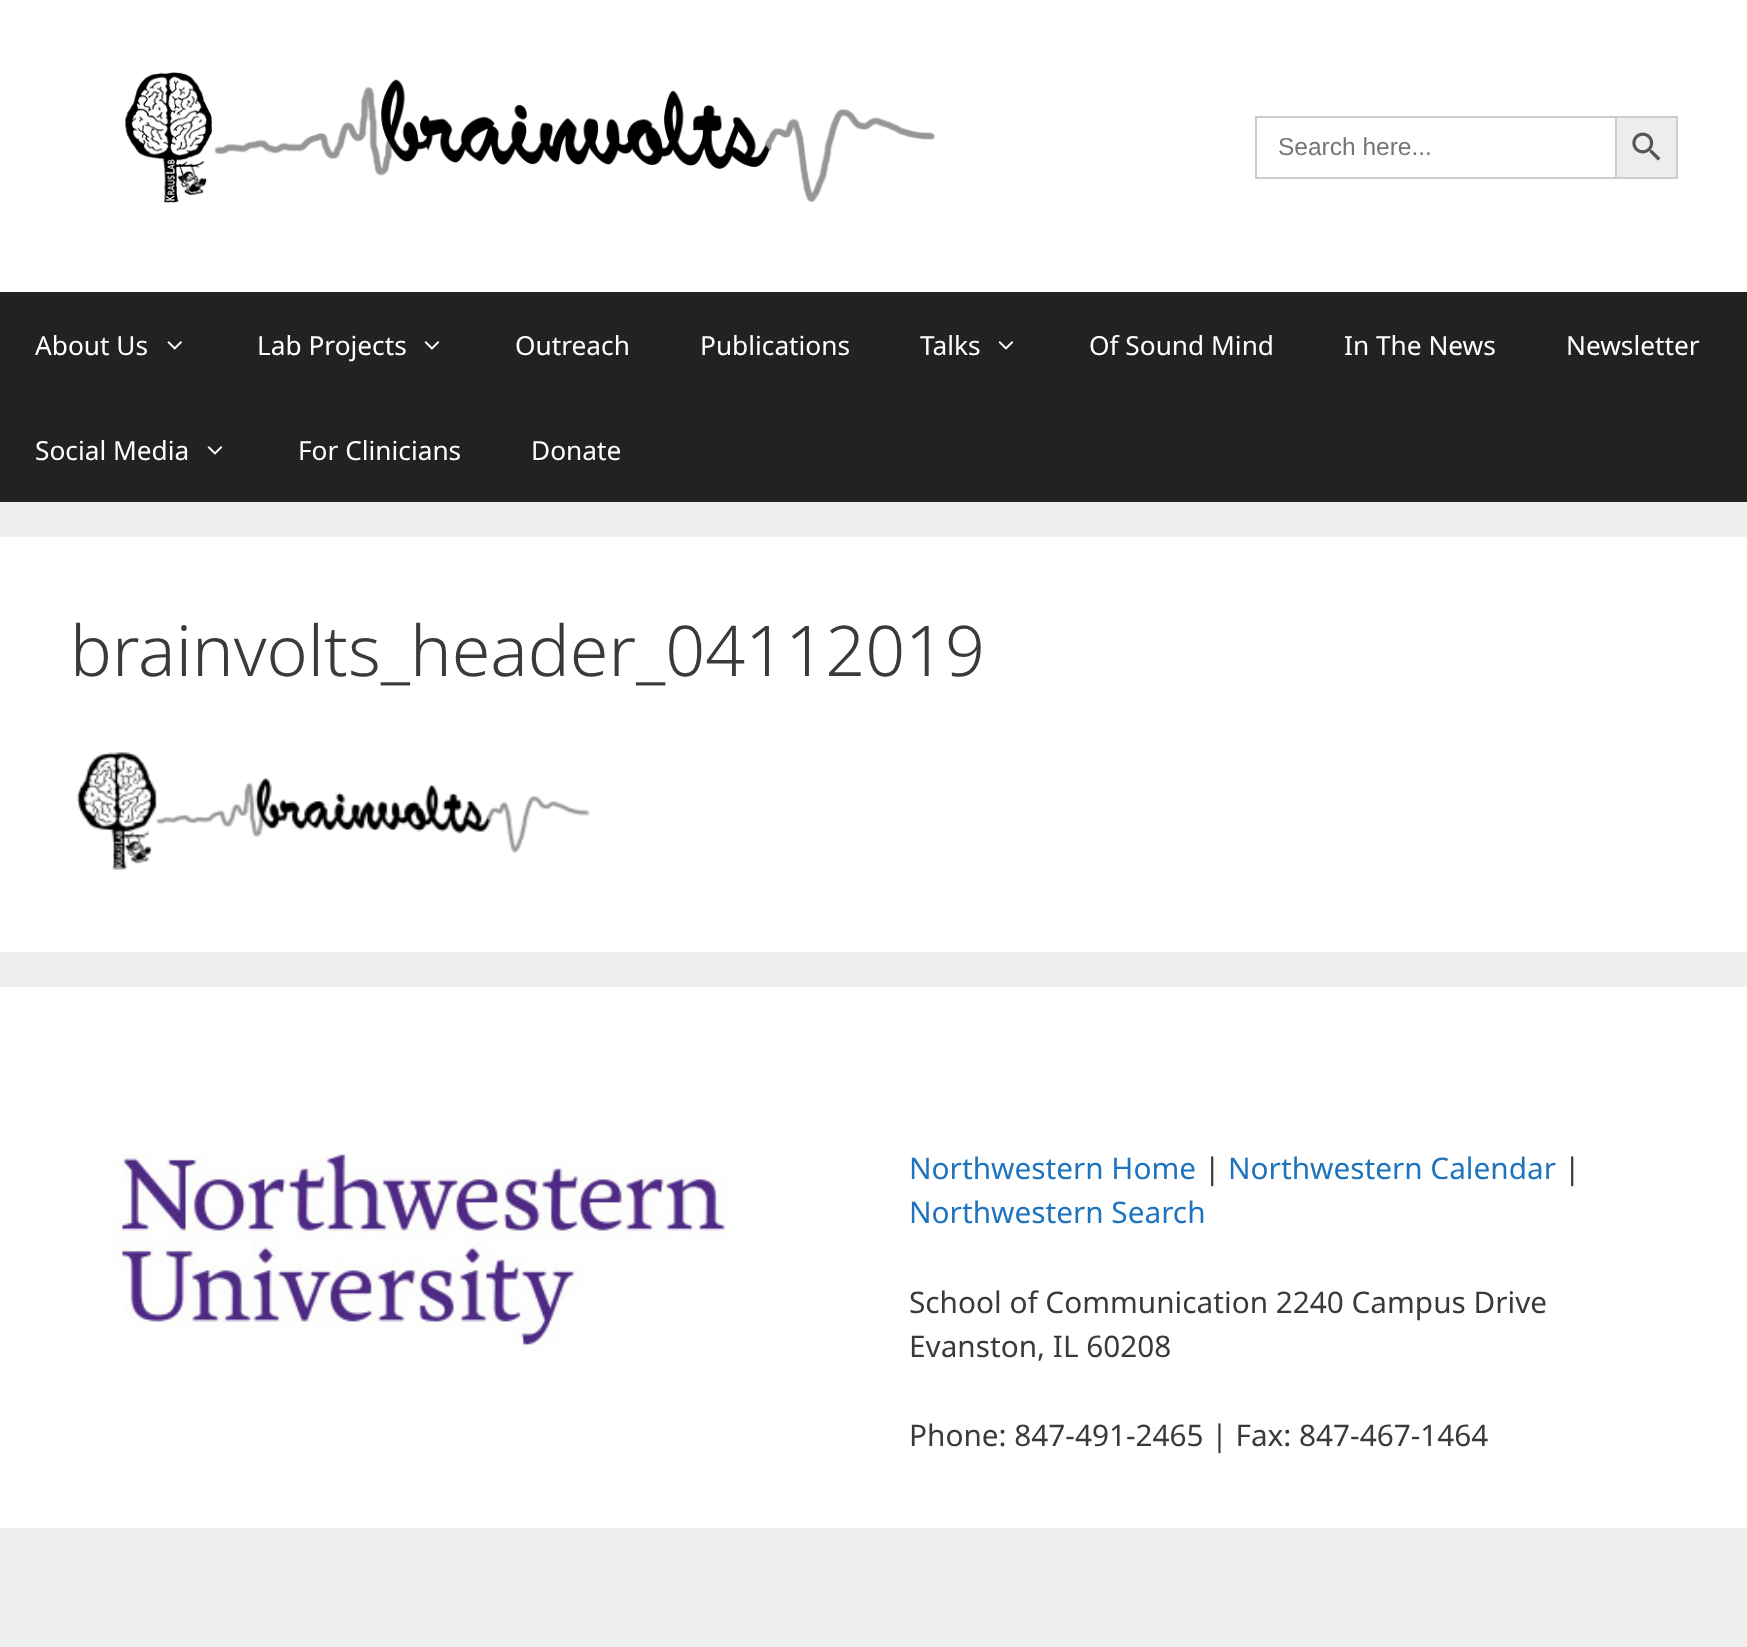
<svg xmlns="http://www.w3.org/2000/svg" width="1747" height="1647" viewBox="0 0 1747 1647">
  <style>
    .t1 { font: 24.5px Liberation Sans; fill: #757575; }
    .t2 { font: 26.25px Noto Sans; fill: #fff; }
    .t3 { font: 300 70px Noto Sans; fill: #3a3a3a; }
    .t4 { font: 29.75px Noto Sans; fill: #1e73be; }
    .t5 { font: 29.75px Noto Sans; fill: #3a3a3a; }
  </style>
  <rect width="100%" height="100%" fill="#efefef"/>
  <rect x="0" y="0" width="1747" height="292" fill="#fff"/>
  <image x="125" y="72" width="811" height="131" href="images/1.png"/>
  <rect x="1255" y="116" width="360" height="2" fill="#ccc"/>
  <rect x="1255" y="177" width="360" height="2" fill="#ccc"/>
  <rect x="1255" y="116" width="2" height="63" fill="#ccc"/>
  <text x="1278" y="155" class="t1">Search here...</text>
  <rect x="1616" y="117" width="61" height="61" fill="#ededed" stroke="#ccc" stroke-width="2"/>
  <image x="1632" y="132" width="29" height="29" href="images/2.png"/>
  <rect x="0" y="292" width="1747" height="210" fill="#222"/>
  <text x="35" y="355" class="t2">About Us</text>
  <image x="167" y="341" width="15" height="9" href="images/3.png"/>
  <text x="257" y="355" class="t2">Lab Projects</text>
  <image x="424" y="341" width="16" height="9" href="images/4.png"/>
  <text x="515" y="355" class="t2">Outreach</text>
  <text x="700" y="355" class="t2">Publications</text>
  <text x="920" y="355" class="t2">Talks</text>
  <image x="998" y="341" width="16" height="9" href="images/4.png"/>
  <text x="1089" y="355" class="t2">Of Sound Mind</text>
  <text x="1344" y="355" class="t2">In The News</text>
  <text x="1566" y="355" class="t2">Newsletter</text>
  <text x="35" y="460" class="t2">Social Media</text>
  <image x="207" y="446" width="16" height="9" href="images/4.png"/>
  <text x="298" y="460" class="t2">For Clinicians</text>
  <text x="531" y="460" class="t2">Donate</text>
  <rect x="0" y="537" width="1747" height="415" fill="#fff"/>
  <text x="70" y="676" class="t3">brainvolts_header_04112019</text>
  <image x="76" y="752" width="514" height="118" href="images/5.png"/>
  <rect x="0" y="987" width="1747" height="541" fill="#fff"/>
  <image x="112" y="1154" width="616" height="197" href="images/6.png"/>
  <text x="909" y="1179" class="t4">Northwestern Home</text>
  <text x="1204" y="1179" class="t5">|</text>
  <text x="1228" y="1179" class="t4">Northwestern Calendar</text>
  <text x="1564" y="1179" class="t5">|</text>
  <text x="909" y="1223" class="t4">Northwestern Search</text>
  <text x="909" y="1313" class="t5">School of Communication 2240 Campus Drive</text>
  <text x="909" y="1357" class="t5">Evanston, IL 60208</text>
  <text x="909" y="1446" class="t5">Phone: 847-491-2465 | Fax: 847-467-1464</text>
</svg>
